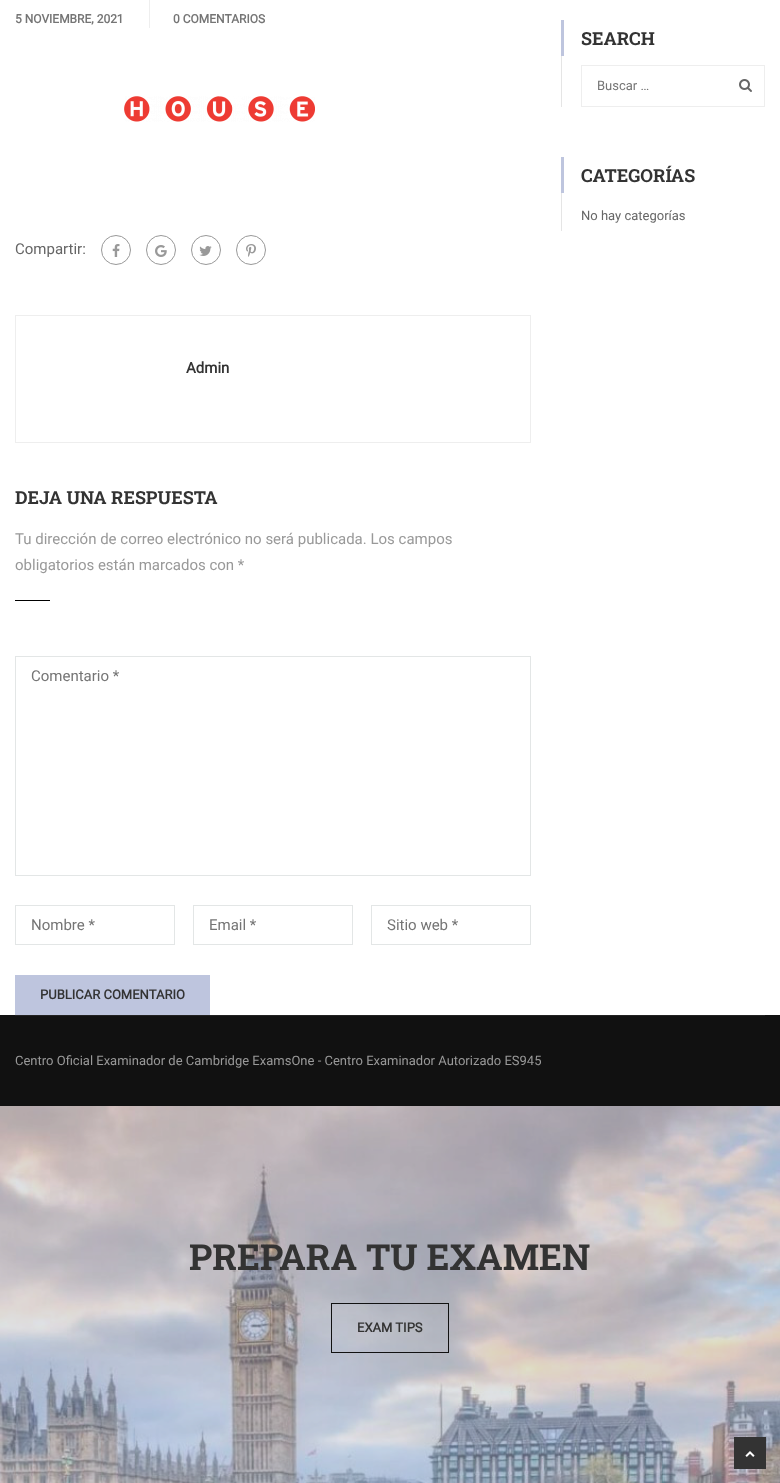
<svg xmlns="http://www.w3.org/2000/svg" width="780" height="1483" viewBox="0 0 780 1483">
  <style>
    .t1 { font: bold 12px Roboto; fill: #757575; }
    .t2 { font: 15px Roboto; fill: #666; }
    .t3 { font: bold 15px Roboto; fill: #333; }
    .t4 { font: bold 18px Roboto Slab; fill: #333; }
    .t5 { font: 15px Roboto; fill: #999; }
    .t6 { font: 15px Roboto; fill: #757575; }
    .t7 { font: bold 13px Roboto; fill: #333; }
    .t8 { font: 13px Roboto; fill: #757575; }
    .t9 { font: 13px Roboto; fill: #666; }
    .t10 { font: 13px Roboto; fill: #999; }
    .t11 { font: bold 36px Roboto Slab; fill: #333; }
  </style>
  <rect width="100%" height="100%" fill="#fff"/>
  <rect x="149" y="0" width="1" height="28" fill="#eee"/>
  <text x="15" y="23" class="t1">5 NOVIEMBRE, 2021</text>
  <text x="173" y="23" class="t1">0 COMENTARIOS</text>
  <image x="124" y="96" width="191" height="26" href="images/1.png"/>
  <text x="15" y="254" class="t2">Compartir:</text>
  <circle cx="116" cy="250" r="14.5" fill="none" stroke="#999"/>
  <image x="112" y="244" width="8" height="13" href="images/2.png"/>
  <circle cx="161" cy="250" r="14.5" fill="none" stroke="#999"/>
  <image x="155" y="245" width="12" height="12" href="images/3.png"/>
  <circle cx="206" cy="250" r="14.5" fill="none" stroke="#999"/>
  <image x="199" y="246" width="13" height="10" href="images/4.png"/>
  <circle cx="251" cy="250" r="14.5" fill="none" stroke="#999"/>
  <image x="246" y="244" width="10" height="13" href="images/5.png"/>
  <rect x="15.5" y="315.5" width="515" height="127" fill="none" stroke="#eee"/>
  <text x="186" y="373" class="t3">Admin</text>
  <text x="15" y="504" class="t4">DEJA UNA RESPUESTA</text>
  <text x="15" y="544" class="t5">Tu dirección de correo electrónico no será publicada. Los campos</text>
  <text x="15" y="570" class="t5">obligatorios están marcados con *</text>
  <rect x="15" y="600" width="35" height="1" fill="#000"/>
  <rect x="15.5" y="656.5" width="515" height="219" fill="none" stroke="#e3e6e6"/>
  <text x="31" y="681" class="t6">Comentario *</text>
  <rect x="15.5" y="905.5" width="159" height="39" fill="none" stroke="#e3e6e6"/>
  <text x="31" y="930" class="t6">Nombre *</text>
  <rect x="193.5" y="905.5" width="159" height="39" fill="none" stroke="#e3e6e6"/>
  <text x="209" y="930" class="t6">Email *</text>
  <rect x="371.5" y="905.5" width="159" height="39" fill="none" stroke="#e3e6e6"/>
  <text x="387" y="930" class="t6">Sitio web *</text>
  <rect x="15" y="975" width="195" height="40" fill="#bec5de"/>
  <text x="40" y="999" class="t7">PUBLICAR COMENTARIO</text>
  <rect x="561" y="20" width="3" height="36" fill="#bec5de"/>
  <text x="581" y="45" class="t4">SEARCH</text>
  <rect x="561" y="56" width="1" height="51" fill="#e5e5e5"/>
  <rect x="581.5" y="65.5" width="183" height="41" fill="none" stroke="#eee"/>
  <text x="597" y="90" class="t8">Buscar …</text>
  <image x="739" y="79" width="13" height="13" href="images/6.png"/>
  <rect x="561" y="157" width="3" height="36" fill="#bec5de"/>
  <text x="581" y="182" class="t4">CATEGORÍAS</text>
  <rect x="561" y="193" width="1" height="38" fill="#e5e5e5"/>
  <text x="581" y="220" class="t9">No hay categorías</text>
  <rect x="0" y="1015" width="780" height="91" fill="#111"/>
  <rect x="15" y="1015" width="750" height="1" fill="#222"/>
  <text x="15" y="1065" class="t10">Centro Oficial Examinador de Cambridge ExamsOne - Centro Examinador Autorizado ES945</text>
  <image x="0" y="1106" width="780" height="377" href="images/7.png"/>
  <text x="189" y="1270" class="t11">PREPARA TU EXAMEN</text>
  <rect x="331.5" y="1303.5" width="117" height="49" fill="none" stroke="#111"/>
  <text x="357" y="1332" class="t7">EXAM TIPS</text>
  <rect x="734" y="1437" width="32" height="32" fill="#333"/>
  <image x="745" y="1451" width="10" height="6" href="images/8.png"/>
</svg>
